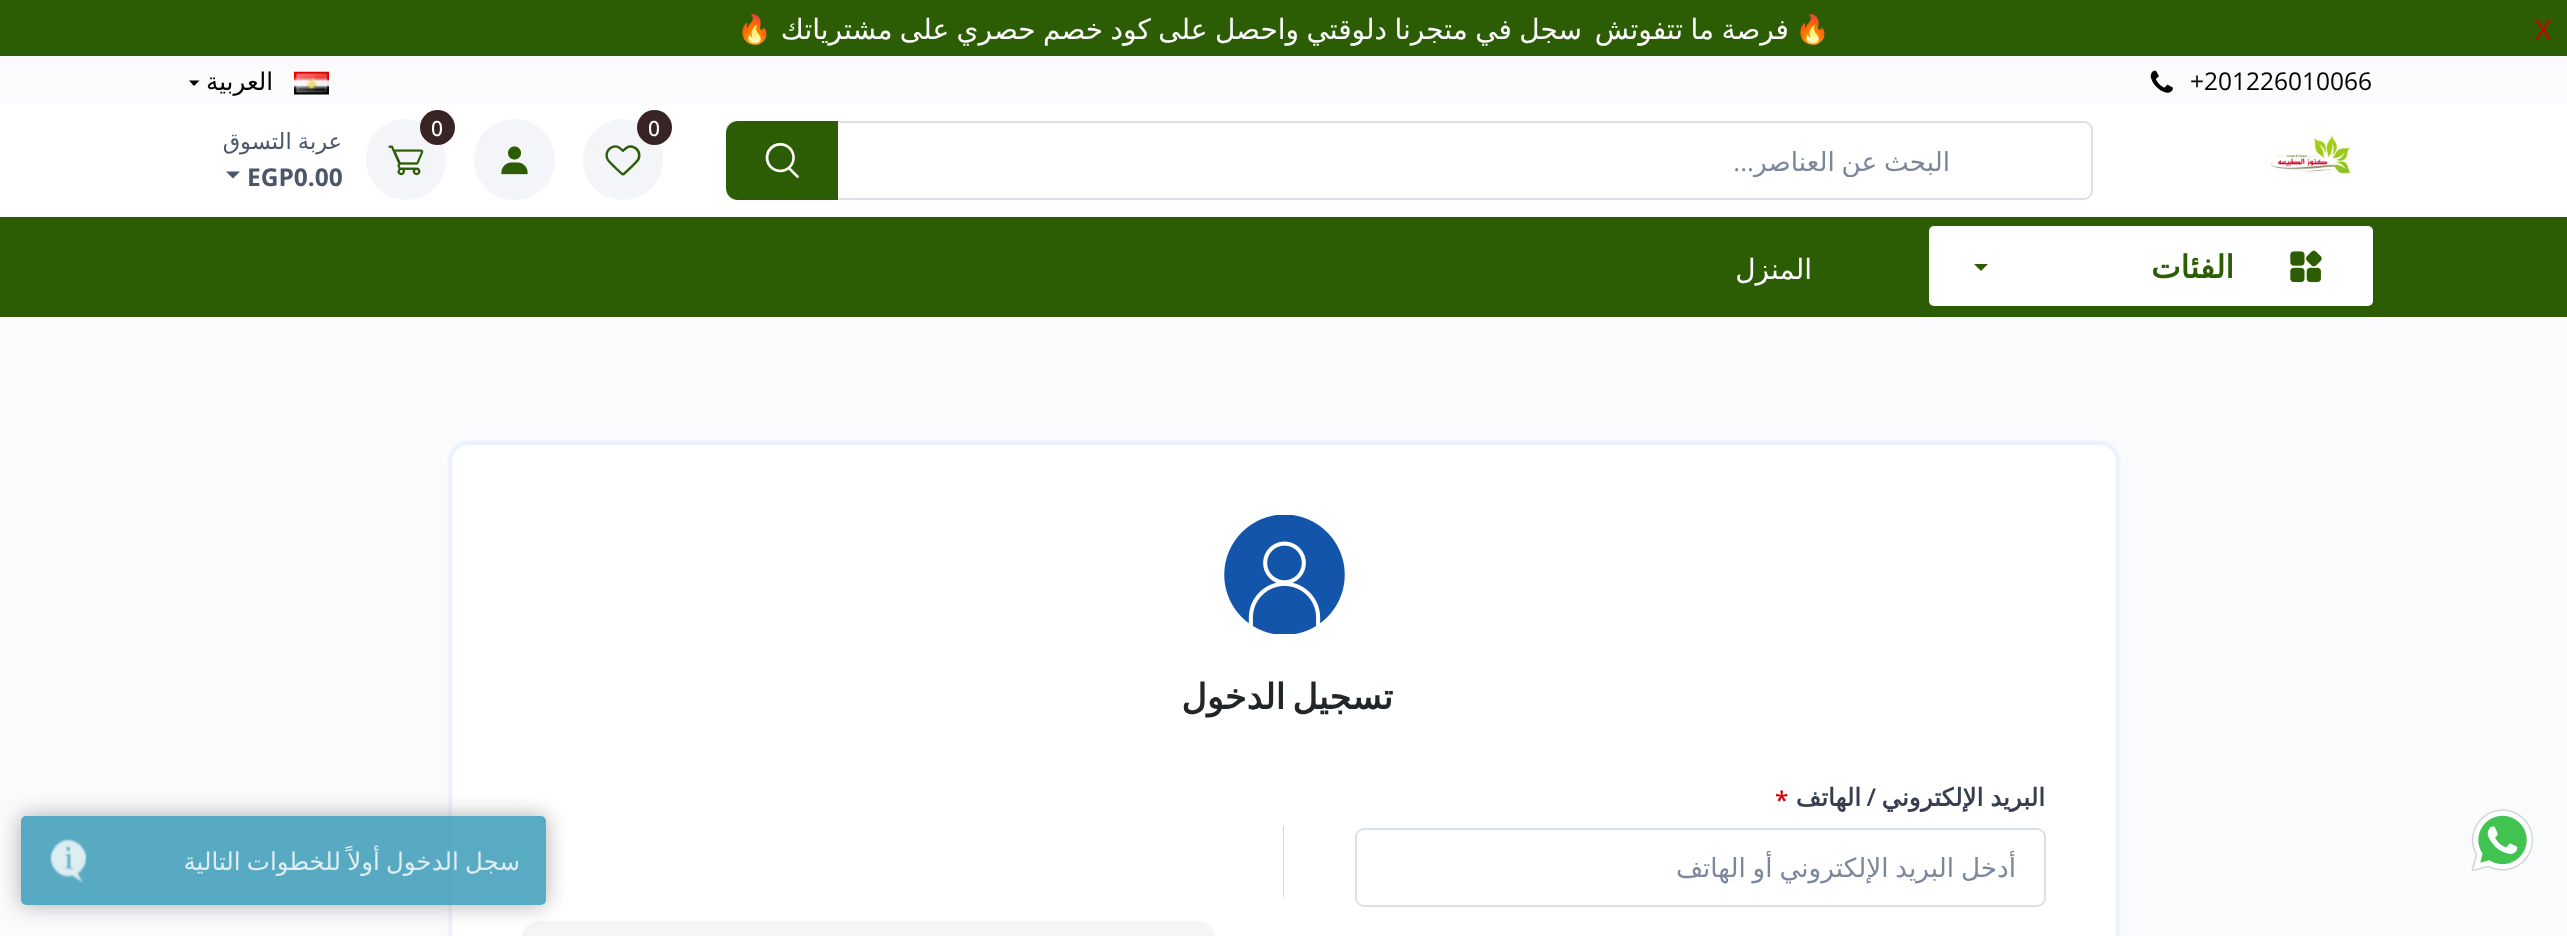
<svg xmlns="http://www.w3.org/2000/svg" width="2567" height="936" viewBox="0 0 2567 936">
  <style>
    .t1 { font: 28px Open Sans; fill: #cd0000; }
    .t2 { font: 28px Noto Color Emoji; direction: rtl; fill: #fff; }
    .t3 { font: 28px DejaVu Sans; direction: rtl; fill: #fff; }
    .t4 { font: 24.5px Open Sans; fill: #000; }
    .t5 { font: 24.5px DejaVu Sans; direction: rtl; fill: #000; }
    .t6 { font: 26.25px DejaVu Sans; direction: rtl; fill: #7d879c; }
    .t7 { font: 26.25px Open Sans; direction: rtl; fill: #7d879c; }
    .t8 { font: 500 21px Open Sans; fill: #fff; }
    .t9 { font: 22.5px DejaVu Sans; direction: rtl; fill: #4b566b; }
    .t10 { font: bold 24.5px Open Sans; fill: #4b566b; }
    .t11 { font: bold 31.5px DejaVu Sans; direction: rtl; fill: #2c5d04; }
    .t12 { font: bold 35px DejaVu Sans; letter-spacing: 0.3px; direction: rtl; fill: #212629; }
    .t13 { font: bold 24.5px DejaVu Sans; direction: rtl; fill: #373f50; }
    .t14 { font: 600 24.5px Open Sans; direction: rtl; fill: #373f50; }
    .t15 { font: 600 24.5px Open Sans; fill: #d80000; }
    .t16 { font: 24.5px DejaVu Sans; direction: rtl; fill: #deeef3; }
  </style>
  <defs>
    <clipPath id="clip1"><rect x="781" y="142" width="1170" height="35"/></clipPath>
    <clipPath id="clip2"><rect x="1384" y="849" width="632" height="35"/></clipPath>
    <clipPath id="clip3"><path d="M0 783H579V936H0ZM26 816H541C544 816 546 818 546 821V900C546 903 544 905 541 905H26C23 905 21 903 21 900V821C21 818 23 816 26 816Z" clip-rule="evenodd"/></clipPath>
  </defs>
  <rect width="100%" height="100%" fill="#fbfbfd"/>
  <rect x="0" y="0" width="2567" height="56" fill="#2c5d04"/>
  <text x="2535" y="40" class="t1">X</text>
  <text x="1830" y="39" class="t2">🔥</text>
  <text x="1789" y="39" word-spacing="-1.5" class="t3">فرصة ما تتفوتش</text>
  <text x="1582" y="39" word-spacing="-1.5" class="t3">سجل في متجرنا دلوقتي واحصل على كود خصم حصري على مشترياتك</text>
  <text x="772" y="39" class="t2">🔥</text>
  <text x="2190" y="90" class="t4">+201226010066</text>
  <image x="2150" y="70" width="23" height="23" href="images/1.png"/>
  <image x="294" y="71" width="35" height="24" href="images/2.png"/>
  <text x="273" y="90" class="t5">العربية</text>
  <path d="M189 80.5H199.5L194 86Z" fill="#000"/>
  <rect x="0" y="103" width="2567" height="114" fill="#fff"/>
  <image x="2270" y="135" width="82" height="39" href="images/3.png"/>
  <rect x="727" y="122" width="1365" height="77" rx="8" fill="none" stroke="#dae1e7" stroke-width="2"/>
  <g clip-path="url(#clip1)">
    <text x="1950" y="171" word-spacing="-1.5" class="t6">البحث عن العناصر</text>
  </g>
  <text x="1754" y="171" class="t7">...</text>
  <path d="M738 121H838V200H738C731.5 200 726 194.5 726 188V133C726 126.5 731.5 121 738 121Z" fill="#2c5d04"/>
  <image x="765" y="142" width="34" height="36" href="images/4.png"/>
  <rect x="583" y="119" width="80" height="81" rx="40" fill="#f3f5f9"/>
  <circle cx="654.5" cy="127.5" r="17.5" fill="#382424"/>
  <text x="648" y="136" class="t8">0</text>
  <image x="605" y="145" width="36" height="31" href="images/5.png"/>
  <circle cx="514.5" cy="159.5" r="40.5" fill="#f3f5f9"/>
  <image x="501" y="146" width="27" height="29" href="images/6.png"/>
  <rect x="366" y="119" width="80" height="81" rx="40" fill="#f3f5f9"/>
  <circle cx="437.5" cy="127.5" r="17.5" fill="#382424"/>
  <text x="431" y="136" class="t8">0</text>
  <image x="388" y="145" width="36" height="31" href="images/7.png"/>
  <text x="342" y="149" word-spacing="-1" class="t9">عربة التسوق</text>
  <text x="247" y="186" class="t10">EGP0.00</text>
  <path d="M226 171.5H240L233 178.5Z" fill="#4b566b"/>
  <rect x="0" y="217" width="2567" height="100" fill="#2c5d04"/>
  <rect x="1929" y="226" width="444" height="80" rx="5" fill="#fff"/>
  <image x="2290" y="250" width="32" height="33" href="images/8.png"/>
  <text x="2234" y="278" class="t11">الفئات</text>
  <path d="M1974 264H1988L1981 271Z" fill="#2c5d04"/>
  <text x="1812" y="279" class="t3">المنزل</text>
  <image x="2471" y="809" width="63" height="62" href="images/9.png"/>
  <rect x="450" y="443" width="1668" height="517" rx="18" fill="#0071dc26" filter="blur(2px)"/>
  <rect x="450" y="443" width="1668" height="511" rx="18" fill="#fff"/>
  <rect x="451" y="444" width="1666" height="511" rx="17" fill="none" stroke="#1b7fed1a" stroke-width="2"/>
  <image x="1224" y="515" width="121" height="119" href="images/10.png"/>
  <text x="1393" y="709" word-spacing="-4" class="t12">تسجيل الدخول</text>
  <text x="2045" y="806" word-spacing="-1" class="t13">البريد الإلكتروني</text>
  <text x="1876" y="806" class="t14">/</text>
  <text x="1861" y="806" class="t13">الهاتف</text>
  <text x="1775" y="809" class="t15">*</text>
  <rect x="1356" y="829" width="689" height="77" rx="8" fill="none" stroke="#dae1e7" stroke-width="2"/>
  <g clip-path="url(#clip2)">
    <text x="2016" y="877" word-spacing="-1.5" class="t6">أدخل البريد الإلكتروني أو الهاتف</text>
  </g>
  <rect x="1283" y="826" width="1" height="71" fill="#d7d7d7"/>
  <rect x="522" y="921" width="693" height="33" rx="18" fill="#f5f5f5"/>
  <g clip-path="url(#clip3)">
    <rect x="21" y="816" width="525" height="89" rx="5" fill="#999999cc" filter="blur(10.5px)"/>
  </g>
  <rect x="21" y="816" width="525" height="89" rx="5" fill="#2f96b4cc"/>
  <image x="50" y="839" width="37" height="44" href="images/11.png"/>
  <text x="520" y="870" word-spacing="-1.5" class="t16">سجل الدخول أولاً للخطوات التالية</text>
</svg>
